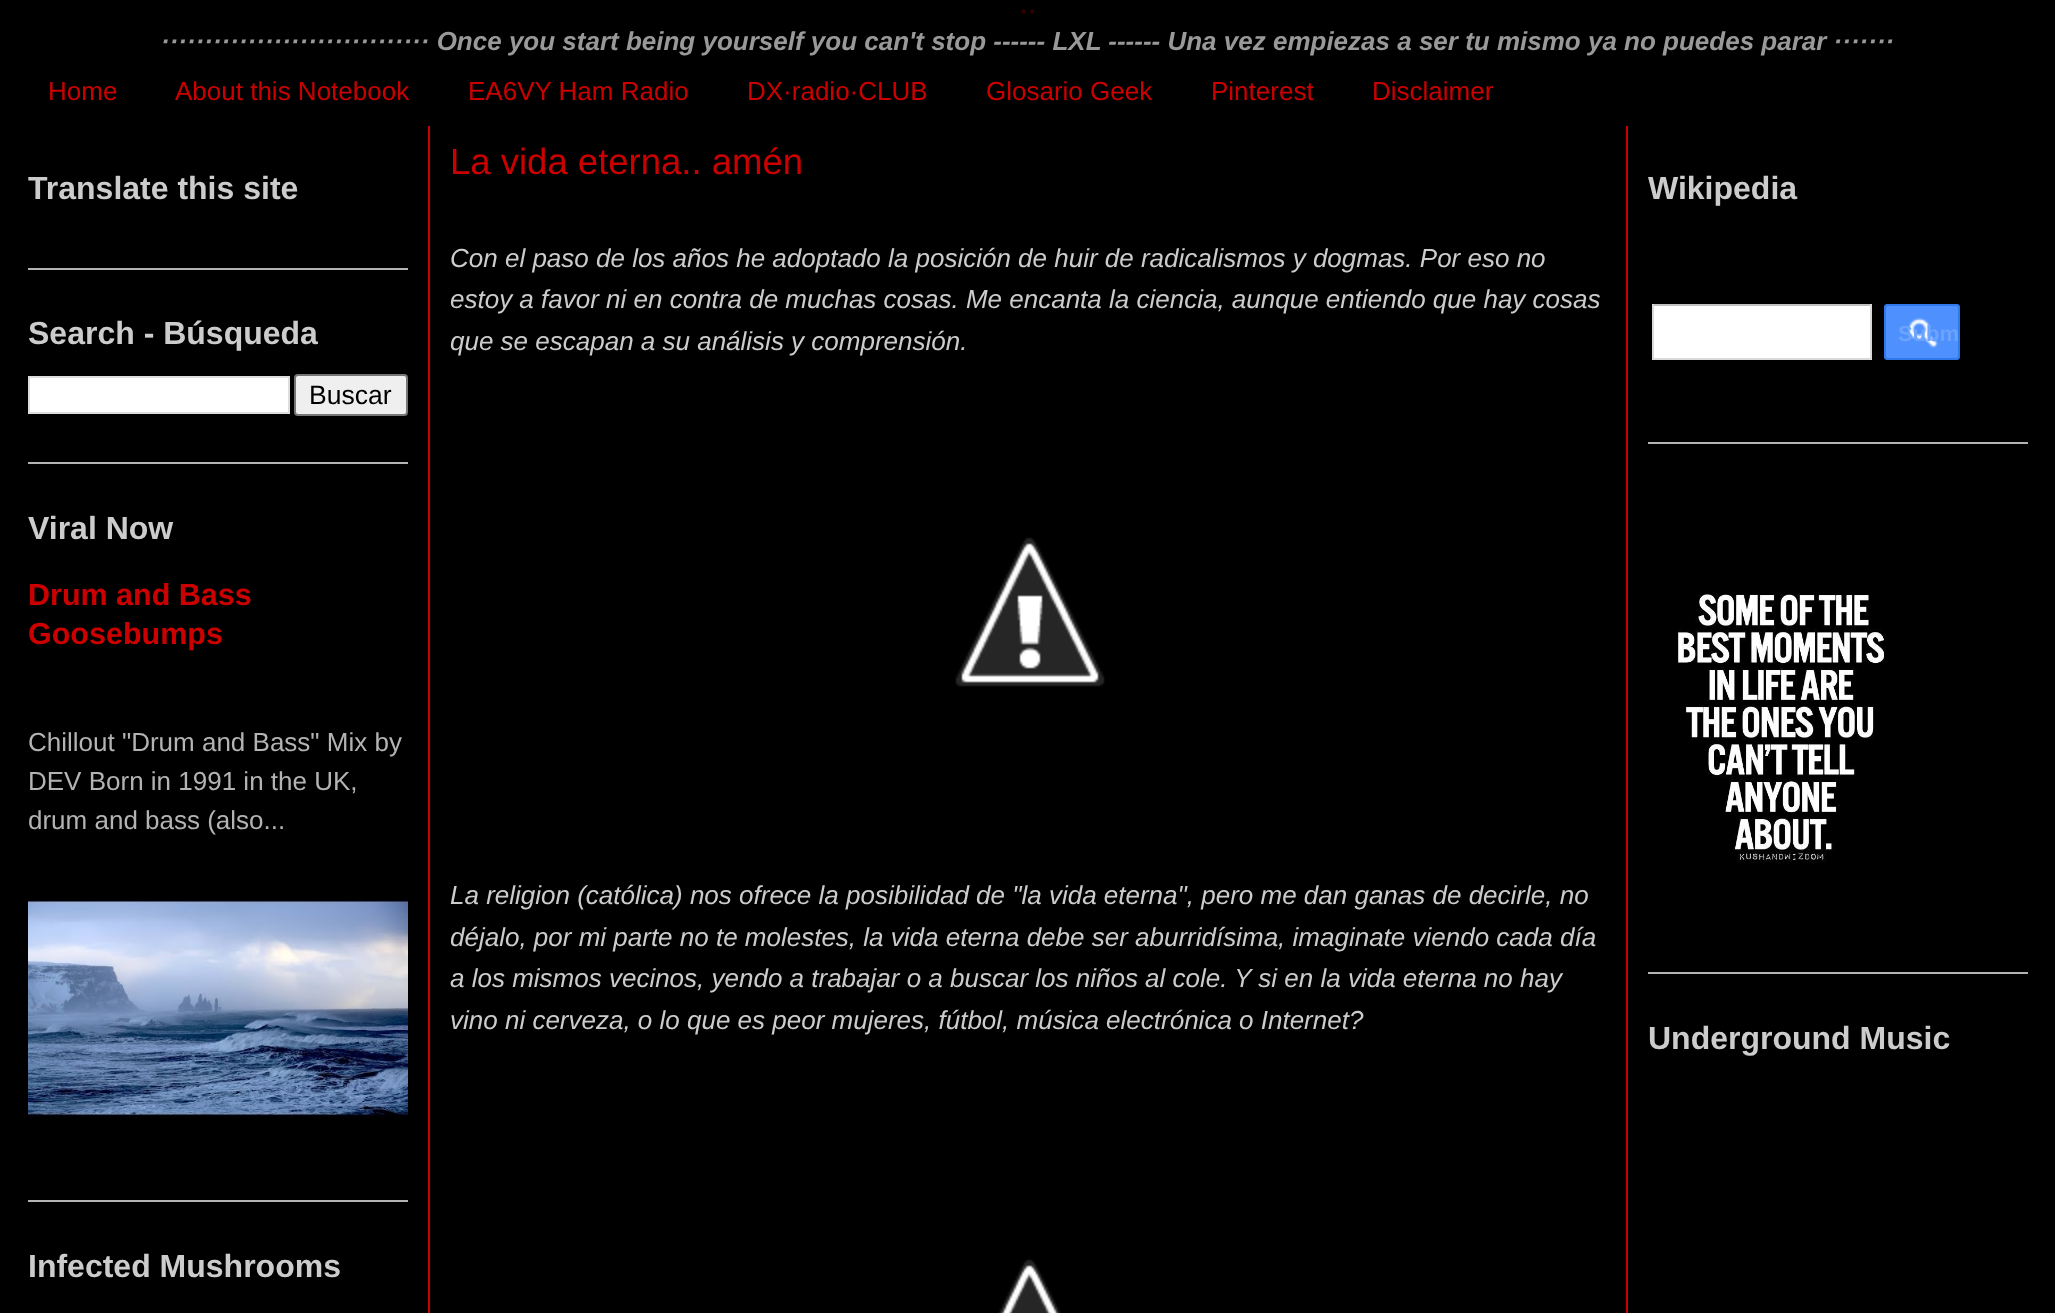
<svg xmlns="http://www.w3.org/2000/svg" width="2055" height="1313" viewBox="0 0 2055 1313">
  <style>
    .t1 { font: italic bold 26px Liberation Sans; fill: #300; }
    .t2 { font: italic bold 26px Liberation Sans; fill: #999; }
    .t3 { font: 26px Liberation Sans; fill: #c00; }
    .t4 { font: bold 32px Liberation Sans; fill: #ccc; }
    .t5 { font: 26.5px Liberation Sans; fill: #000; }
    .t6 { font: bold 30.5px Liberation Sans; fill: #c00; }
    .t7 { font: 26px Liberation Sans; fill: #b3b3b3; }
    .t8 { font: 36.5px Liberation Sans; fill: #c00; }
    .t9 { font: italic 26px Liberation Sans; fill: #ccc; }
    .t10 { font: bold 22px Liberation Sans; fill: #6ca3fe; }
  </style>
  <rect width="100%" height="100%" fill="#000"/>
  <text x="1019" y="20" class="t1">··</text>
  <text x="161" y="50" class="t2">······························· Once you start being yourself you can't stop ------ LXL ------ Una vez empiezas a ser tu mismo ya no puedes parar ·······</text>
  <text x="48" y="100" class="t3">Home</text>
  <text x="175" y="100" class="t3">About this Notebook</text>
  <text x="468" y="100" class="t3">EA6VY Ham Radio</text>
  <text x="747" y="100" class="t3">DX·radio·CLUB</text>
  <text x="986" y="100" class="t3">Glosario Geek</text>
  <text x="1211" y="100" class="t3">Pinterest</text>
  <text x="1372" y="100" class="t3">Disclaimer</text>
  <rect x="428" y="126" width="2" height="1187" fill="#c00"/>
  <rect x="28" y="268" width="380" height="2" fill="#b3b3b3"/>
  <text x="28" y="199" class="t4">Translate this site</text>
  <rect x="28" y="462" width="380" height="2" fill="#b3b3b3"/>
  <text x="28" y="344" class="t4">Search - Búsqueda</text>
  <rect x="29" y="377" width="260" height="36" fill="#fff" stroke="#ddd" stroke-width="2"/>
  <rect x="295" y="375" width="112" height="40" rx="3" fill="#efefef" stroke="#767676" stroke-width="2"/>
  <text x="309" y="404" class="t5">Buscar</text>
  <rect x="28" y="1200" width="380" height="2" fill="#b3b3b3"/>
  <text x="28" y="539" class="t4">Viral Now</text>
  <text x="28" y="605" class="t6">Drum and Bass</text>
  <text x="28" y="644" class="t6">Goosebumps</text>
  <text x="28" y="751" class="t7">Chillout "Drum and Bass" Mix by</text>
  <text x="28" y="790" class="t7">DEV Born in 1991 in the UK,</text>
  <text x="28" y="829" class="t7">drum and bass (also...</text>
  <image x="28" y="899" width="380" height="219" href="images/1.png"/>
  <text x="28" y="1277" class="t4">Infected Mushrooms</text>
  <text x="450" y="174" class="t8">La vida eterna.. amén</text>
  <text x="450" y="267" class="t9">Con el paso de los años he adoptado la posición de huir de radicalismos y dogmas. Por eso no</text>
  <text x="450" y="308" class="t9">estoy a favor ni en contra de muchas cosas. Me encanta la ciencia, aunque entiendo que hay cosas</text>
  <text x="450" y="350" class="t9">que se escapan a su análisis y comprensión.</text>
  <image x="955" y="537" width="150" height="150" href="images/2.png"/>
  <text x="450" y="904" class="t9">La religion (católica) nos ofrece la posibilidad de "la vida eterna", pero me dan ganas de decirle, no</text>
  <text x="450" y="946" class="t9">déjalo, por mi parte no te molestes, la vida eterna debe ser aburridísima, imaginate viendo cada día</text>
  <text x="450" y="987" class="t9">a los mismos vecinos, yendo a trabajar o a buscar los niños al cole. Y si en la vida eterna no hay</text>
  <text x="450" y="1029" class="t9">vino ni cerveza, o lo que es peor mujeres, fútbol, música electrónica o Internet?</text>
  <image x="998" y="1259" width="63" height="54" href="images/3.png"/>
  <rect x="1626" y="126" width="2" height="1187" fill="#c00"/>
  <rect x="1648" y="442" width="380" height="2" fill="#b3b3b3"/>
  <text x="1648" y="199" class="t4">Wikipedia</text>
  <rect x="1654" y="306" width="216" height="52" fill="#fff"/>
  <rect x="1652" y="304" width="220" height="2" fill="#c0c0c0"/>
  <rect x="1870" y="304" width="2" height="56" fill="#d9d9d9"/>
  <rect x="1652" y="358" width="220" height="2" fill="#d9d9d9"/>
  <rect x="1652" y="304" width="2" height="56" fill="#d9d9d9"/>
  <rect x="1884" y="304" width="76" height="56" rx="4" fill="#4d90fe"/>
  <image x="1907" y="317" width="32" height="32" href="images/4.png"/>
  <rect x="1885" y="305" width="74" height="54" rx="3" fill="none" stroke="#3079ed" stroke-width="2"/>
  <text x="1898" y="341" class="t10">Subm</text>
  <rect x="1648" y="972" width="380" height="2" fill="#b3b3b3"/>
  <image x="1678" y="593" width="209" height="270" href="images/5.png"/>
  <text x="1648" y="1049" class="t4">Underground Music</text>
</svg>
